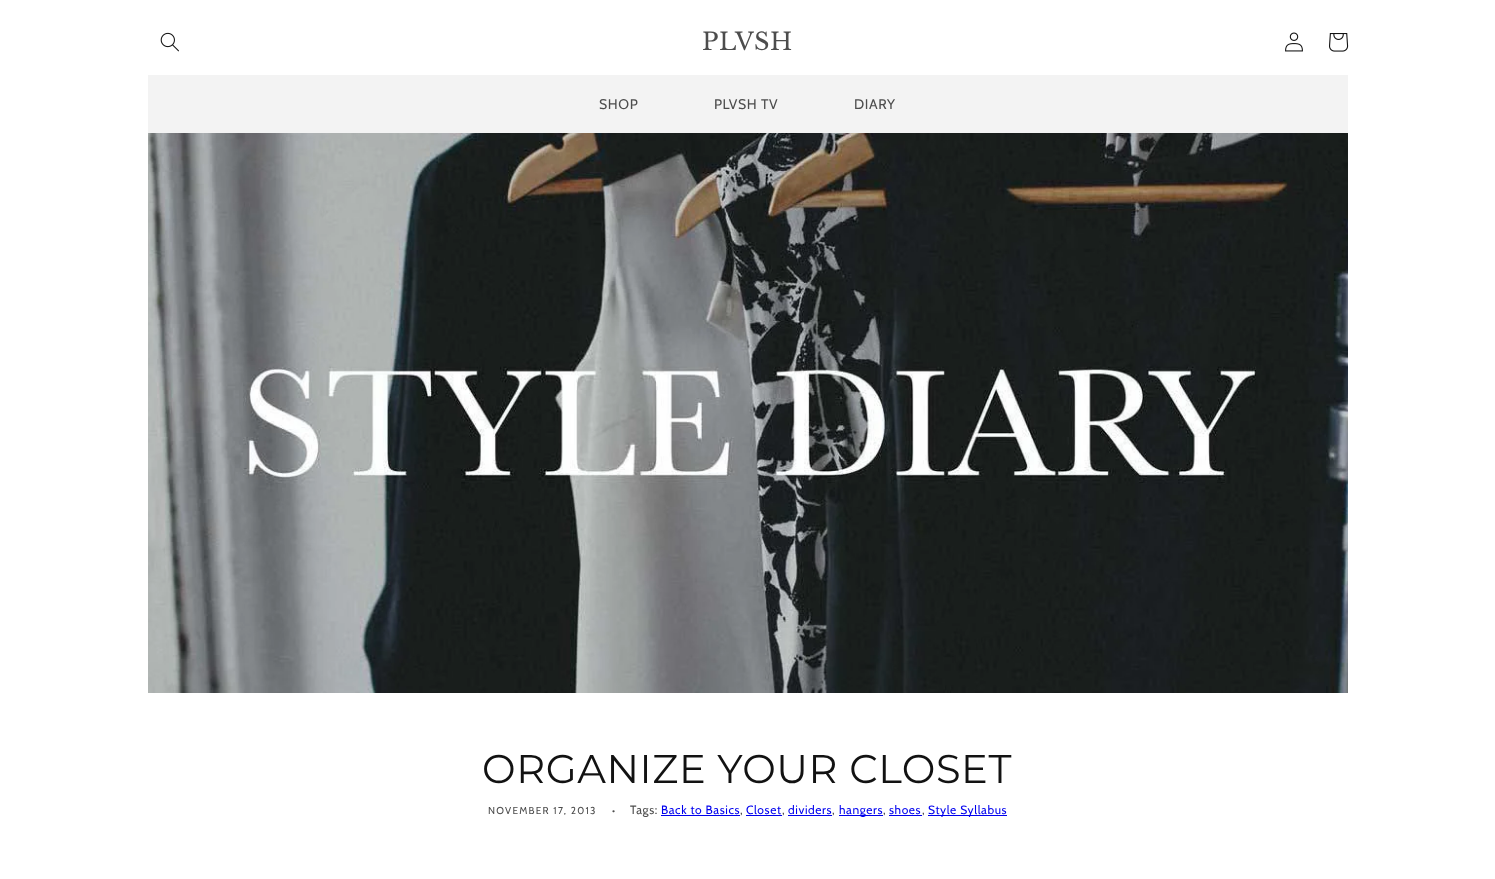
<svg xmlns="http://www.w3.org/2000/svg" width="1495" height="879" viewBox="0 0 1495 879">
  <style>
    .t1 { font: 24px Libre Baskerville; letter-spacing: 0.6px; fill: #4d4d4d; }
    .t2 { font: 14px Cabin; letter-spacing: 0.6px; fill: #4d4d4d; }
    .t3 { font: 40px Montserrat; letter-spacing: 0.6px; fill: #121212; }
    .t4 { font: 10px Cabin; letter-spacing: 1.25px; fill: #4d4d4d; }
    .t5 { font: 12px Cabin; letter-spacing: 0.6px; fill: #4d4d4d; }
    .t6 { font: 12px Cabin; letter-spacing: 0.6px; fill: #00e; }
  </style>
  <rect width="100%" height="100%" fill="#fff"/>
  <image x="160" y="32" width="19" height="20" href="images/1.png"/>
  <text x="702" y="50" class="t1">PLVSH</text>
  <image x="1285" y="32" width="18" height="20" href="images/2.png"/>
  <image x="1329" y="33" width="20" height="19" href="images/3.png"/>
  <rect x="148" y="75" width="1200" height="58" fill="#f3f3f3"/>
  <text x="599" y="109" class="t2">SHOP</text>
  <text x="714" y="109" class="t2">PLVSH TV</text>
  <text x="854" y="109" class="t2">DIARY</text>
  <image x="148" y="133" width="1200" height="560" href="images/4.png"/>
  <text x="482" y="783" class="t3">ORGANIZE YOUR CLOSET</text>
  <text x="488" y="814" class="t4">NOVEMBER 17, 2013</text>
  <text x="612" y="814" class="t4">•</text>
  <text x="630" y="814" class="t5">Tags:</text>
  <text x="661" y="814" class="t6">Back to Basics</text>
  <text x="746" y="814" class="t6">Closet</text>
  <text x="788" y="814" class="t6">dividers</text>
  <rect x="839" y="815" width="44" height="1" fill="#00e"/>
  <text x="839" y="814" class="t6">hangers</text>
  <text x="889" y="814" class="t6">shoes</text>
  <rect x="928" y="815" width="79" height="1" fill="#00e"/>
  <text x="928" y="814" class="t6">Style Syllabus</text>
  <text x="740" y="814" class="t5">,</text>
  <rect x="661" y="815" width="79" height="1" fill="#00e"/>
  <text x="782" y="814" class="t5">,</text>
  <rect x="746" y="815" width="36" height="1" fill="#00e"/>
  <text x="832" y="814" class="t5">,</text>
  <rect x="788" y="815" width="44" height="1" fill="#00e"/>
  <text x="883" y="814" class="t5">,</text>
  <text x="922" y="814" class="t5">,</text>
  <rect x="889" y="815" width="33" height="1" fill="#00e"/>
</svg>
